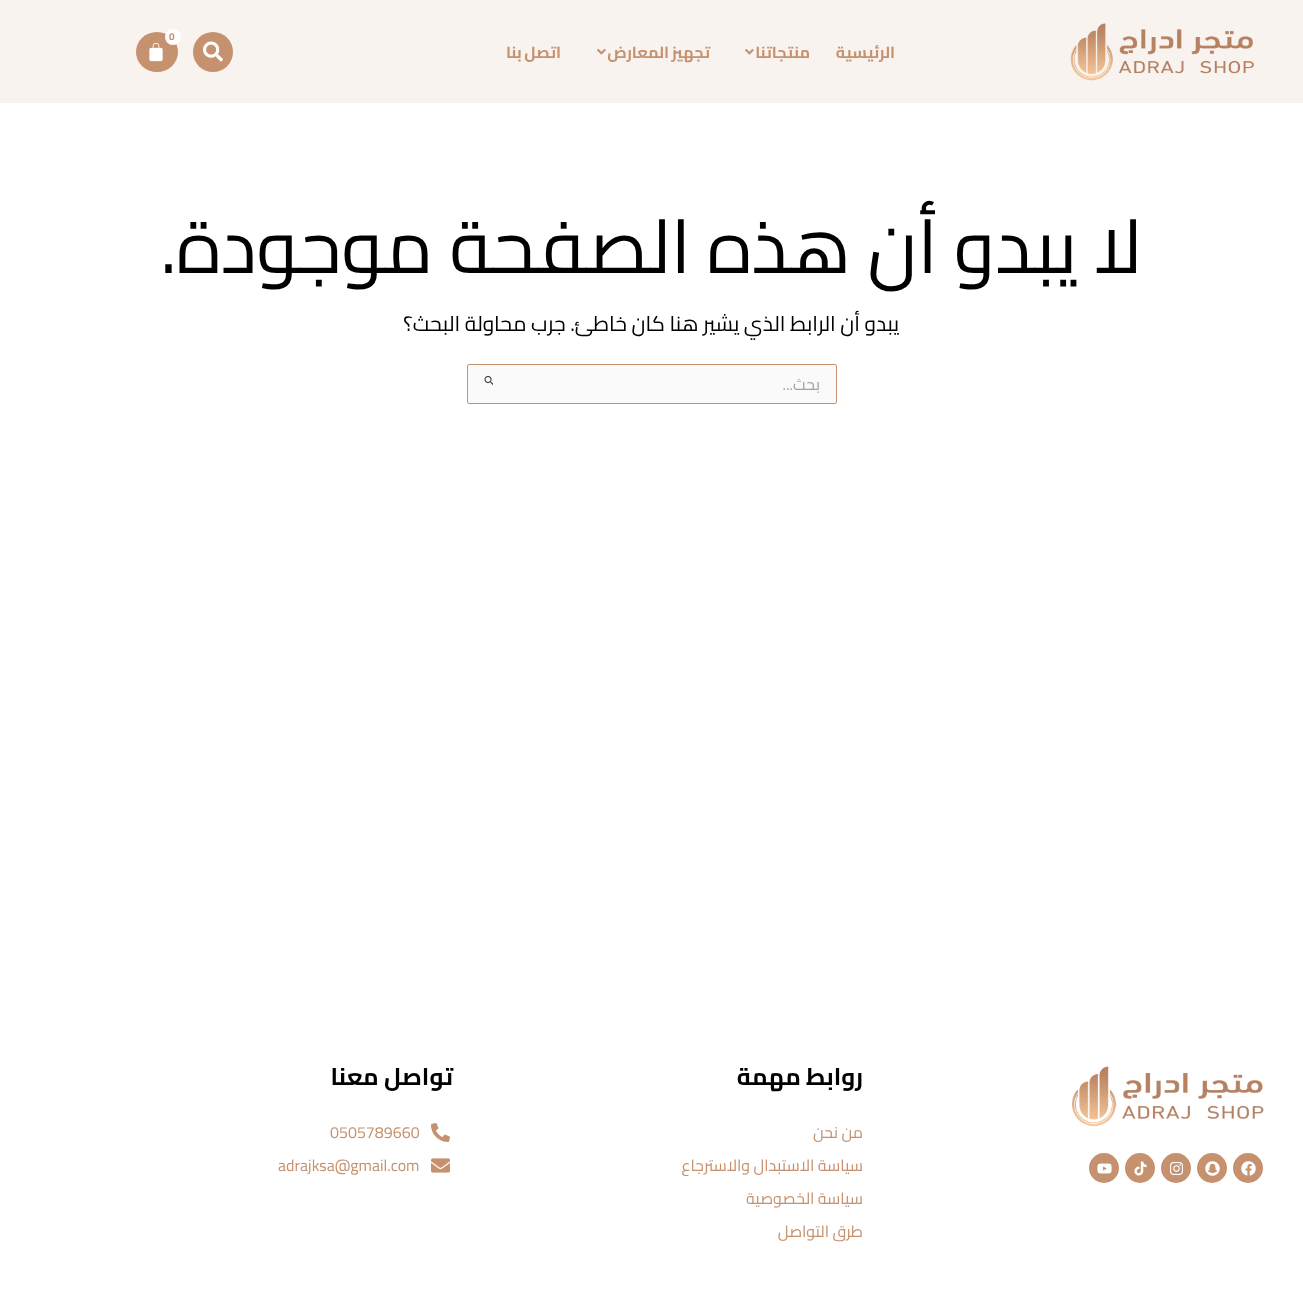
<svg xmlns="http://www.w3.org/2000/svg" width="1303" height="1303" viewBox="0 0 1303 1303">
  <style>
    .t1 { font: bold 10px Cairo; letter-spacing: 2px; fill: #c6916e; }
    .t2 { font: bold 16px Cairo; letter-spacing: 0.1px; direction: rtl; fill: #c6916e; }
    .t3 { font: 75px Cairo; direction: rtl; fill: #000; }
    .t4 { font: 21px Cairo; direction: rtl; fill: #000; }
    .t5 { font: 16px Cairo; direction: rtl; fill: #9ca3af; }
    .t6 { font: bold 24px Cairo; direction: rtl; fill: #000; }
    .t7 { font: 16px Cairo; direction: rtl; fill: #c6916e; }
    .t8 { font: 16px Cairo; fill: #c6916e; }
  </style>
  <rect width="100%" height="100%" fill="#fff"/>
  <rect x="0" y="0" width="1303" height="103" fill="#f8f3ef"/>
  <image x="1070" y="23" width="185" height="58" href="images/1.png"/>
  <circle cx="213" cy="52" r="20" fill="#c6916e"/>
  <image x="203" y="41" width="20" height="21" href="images/2.png"/>
  <ellipse cx="157" cy="52" rx="21" ry="20" fill="#c6916e"/>
  <circle cx="173" cy="37" r="8" fill="#fff"/>
  <text x="169" y="40" class="t1">0</text>
  <image x="149" y="42" width="14" height="20" href="images/3.png"/>
  <text x="895" y="58" class="t2">الرئيسية</text>
  <text x="810" y="58" class="t2">منتجاتنا</text>
  <image x="745" y="49" width="9" height="6" href="images/4.png"/>
  <text x="710" y="58" word-spacing="-1" class="t2">تجهيز المعارض</text>
  <image x="597" y="49" width="9" height="6" href="images/4.png"/>
  <text x="561" y="58" word-spacing="-1" class="t2">اتصل بنا</text>
  <text x="1142" y="273" class="t3">لا يبدو أن هذه الصفحة موجودة.</text>
  <text x="899" y="331" class="t4">يبدو أن الرابط الذي يشير هنا كان خاطئ. جرب محاولة البحث؟</text>
  <rect x="467.5" y="364.5" width="369" height="39" rx="1.5" fill="#fafafa" stroke="#c6916e"/>
  <text x="820" y="390" class="t5">بحث...</text>
  <image x="484" y="375" width="9" height="11" href="images/5.png"/>
  <image x="1072" y="1066" width="192" height="61" href="images/6.png"/>
  <circle cx="1248" cy="1168" r="15" fill="#c6916e"/>
  <image x="1241" y="1161" width="15" height="15" href="images/7.png"/>
  <circle cx="1212" cy="1168" r="15" fill="#c6916e"/>
  <image x="1205" y="1161" width="15" height="15" href="images/8.png"/>
  <circle cx="1176" cy="1168" r="15" fill="#c6916e"/>
  <image x="1170" y="1162" width="13" height="13" href="images/9.png"/>
  <circle cx="1140" cy="1168" r="15" fill="#c6916e"/>
  <image x="1134" y="1161" width="13" height="15" href="images/10.png"/>
  <circle cx="1104" cy="1168" r="15" fill="#c6916e"/>
  <image x="1097" y="1163" width="15" height="11" href="images/11.png"/>
  <text x="863" y="1085" class="t6">روابط مهمة</text>
  <text x="863" y="1138" class="t7">من نحن</text>
  <text x="863" y="1171" class="t7">سياسة الاستبدال والاسترجاع</text>
  <text x="863" y="1204" class="t7">سياسة الخصوصية</text>
  <text x="863" y="1237" class="t7">طرق التواصل</text>
  <text x="453" y="1085" class="t6">تواصل معنا</text>
  <image x="431" y="1123" width="19" height="19" href="images/12.png"/>
  <text x="330" y="1138" class="t8">0505789660</text>
  <image x="431" y="1158" width="19" height="15" href="images/13.png"/>
  <text x="278" y="1171" class="t8">adrajksa@gmail.com</text>
</svg>
